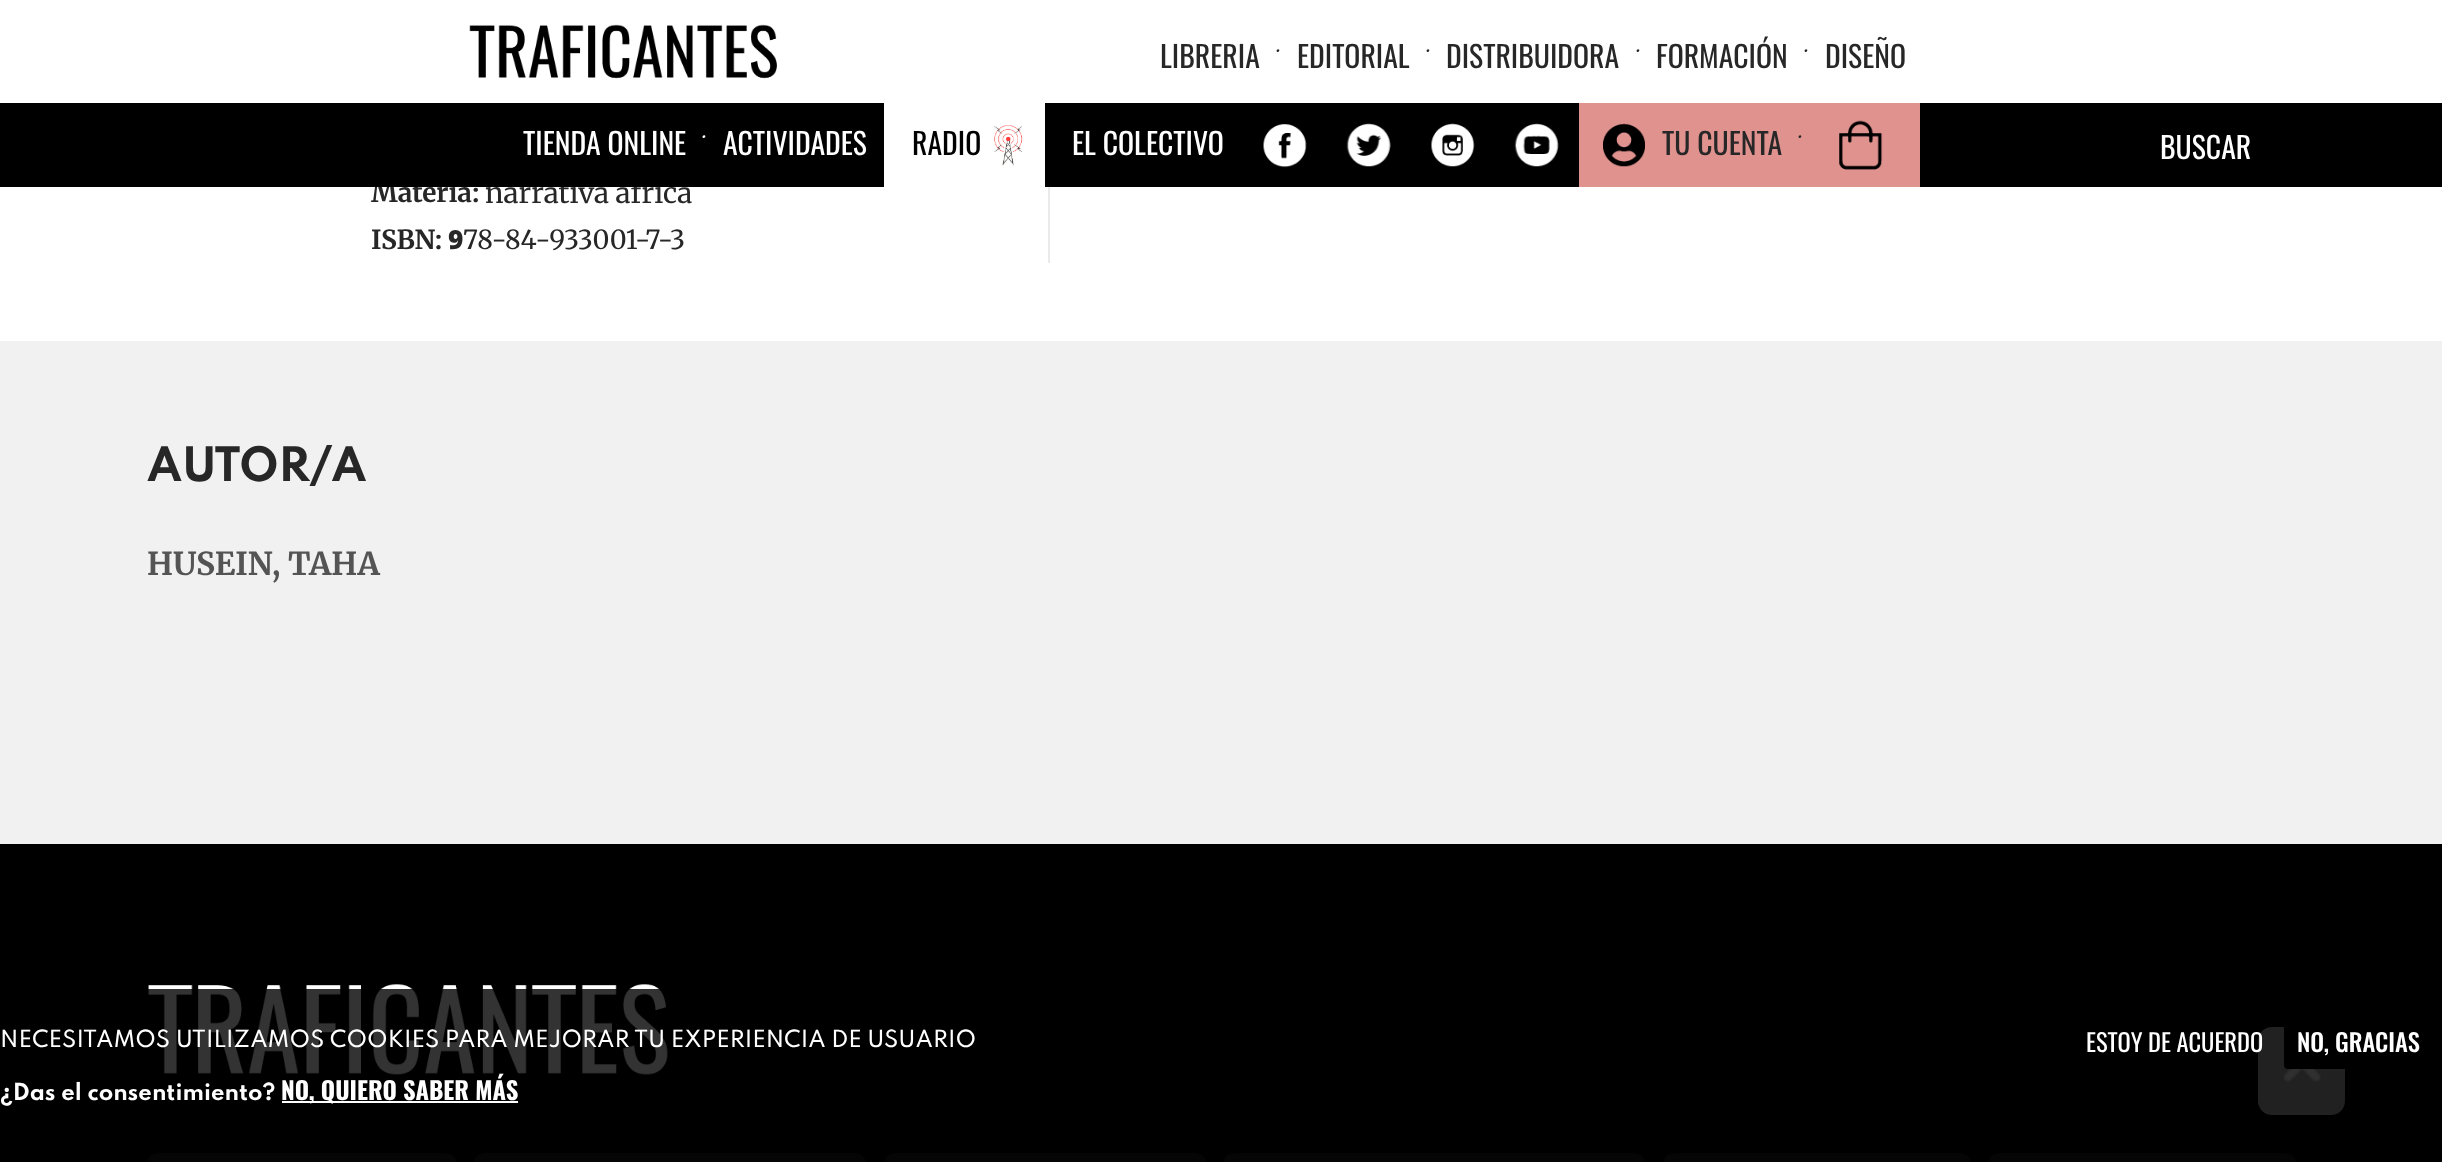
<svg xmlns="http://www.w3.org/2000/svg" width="2442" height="1162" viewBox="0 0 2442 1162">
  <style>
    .t1 { font: bold 26.25px Merriweather; fill: #272727; }
    .t2 { font: 28px Merriweather; fill: #272727; }
    .t3 { font: 29.75px Oswald; fill: #272727; }
    .t4 { font: 300 23px Merriweather; fill: #272727; }
    .t5 { font: 29.75px Oswald; fill: #fff; }
    .t6 { font: 300 23px Merriweather; fill: #fff; }
    .t7 { font: 29.75px Oswald; fill: #000; }
    .t8 { font: 900 26.25px Noto Sans; fill: #272727; }
    .t9 { font: 26.25px Merriweather; fill: #272727; }
    .t10 { font: bold 42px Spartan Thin; fill: #272727; }
    .t11 { font: bold 31.5px Merriweather; fill: #545454; }
    .t12 { font: 500 21px Spartan Thin; fill: #fff; }
    .t13 { font: bold 21px Spartan Thin; fill: #fff; }
    .t14 { font: bold 24.5px Oswald; fill: #fff; }
    .t15 { font: 24.5px Oswald; fill: #fff; }
    .t16 { font: 500 24.5px Oswald; fill: #fff; }
  </style>
  <rect width="100%" height="100%" fill="#fff"/>
  <image x="469" y="24" width="308" height="55" href="images/1.png"/>
  <text x="371" y="202" class="t1">Materia:</text>
  <text x="485" y="203" class="t2">narrativa áfrica</text>
  <rect x="0" y="103" width="2442" height="84" fill="#000"/>
  <text x="1160" y="68" class="t3">LIBRERIA</text>
  <text x="1277" y="60" class="t4">·</text>
  <text x="1297" y="68" class="t3">EDITORIAL</text>
  <text x="1427" y="60" class="t4">·</text>
  <text x="1446" y="68" class="t3">DISTRIBUIDORA</text>
  <text x="1637" y="60" class="t4">·</text>
  <text x="1656" y="68" class="t3">FORMACIÓN</text>
  <text x="1805" y="60" class="t4">·</text>
  <text x="1825" y="68" class="t3">DISEÑO</text>
  <text x="523" y="155" class="t5">TIENDA ONLINE</text>
  <text x="703" y="146" class="t6">·</text>
  <text x="723" y="155" class="t5">ACTIVIDADES</text>
  <rect x="884" y="103" width="161" height="84" fill="#fff"/>
  <image x="994" y="125" width="29" height="41" href="images/2.png"/>
  <text x="912" y="155" class="t7">RADIO</text>
  <text x="1072" y="155" class="t5">EL COLECTIVO</text>
  <image x="1263" y="124" width="44" height="44" href="images/3.png"/>
  <image x="1346" y="123" width="45" height="44" href="images/4.png"/>
  <image x="1431" y="123" width="44" height="44" href="images/5.png"/>
  <image x="1514" y="123" width="45" height="44" href="images/6.png"/>
  <rect x="1579" y="103" width="341" height="84" fill="#e0928f"/>
  <image x="1602" y="123" width="43" height="44" href="images/7.png"/>
  <text x="1662" y="155" class="t3">TU CUENTA</text>
  <text x="1799" y="146" class="t4">·</text>
  <image x="1839" y="120" width="44" height="50" href="images/8.png"/>
  <text x="2160" y="159" class="t5">BUSCAR</text>
  <text x="371" y="249" class="t1">ISBN:</text>
  <text x="448" y="249" class="t8">9</text>
  <text x="463" y="249" class="t9">78-84-933001-7-3</text>
  <rect x="1048" y="187" width="2" height="76" fill="#eaeaea"/>
  <rect x="0" y="341" width="2442" height="503" fill="#f1f1f1"/>
  <text x="147" y="481" class="t10">AUTOR/A</text>
  <text x="147" y="575" class="t11">HUSEIN, TAHA</text>
  <rect x="0" y="844" width="2442" height="318" fill="#000"/>
  <image x="148" y="984" width="520" height="91" href="images/9.png"/>
  <rect x="147" y="1153" width="310" height="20" rx="11" fill="#1a1a1a"/>
  <rect x="474" y="1153" width="392" height="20" rx="11" fill="#1a1a1a"/>
  <rect x="884" y="1153" width="322" height="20" rx="11" fill="#1a1a1a"/>
  <rect x="1223" y="1153" width="422" height="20" rx="11" fill="#1a1a1a"/>
  <rect x="1663" y="1153" width="308" height="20" rx="11" fill="#1a1a1a"/>
  <rect x="1988" y="1153" width="308" height="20" rx="11" fill="#1a1a1a"/>
  <rect x="2258" y="1027" width="87" height="88" rx="14" fill="#a3a3a3"/>
  <image x="2283" y="1069" width="38" height="13" href="images/10.png"/>
  <rect x="0" y="989" width="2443" height="173" rx="4" fill="#000000cc"/>
  <text x="0" y="1047" class="t12">NECESITAMOS UTILIZAMOS COOKIES PARA MEJORAR TU EXPERIENCIA DE USUARIO</text>
  <text x="0" y="1100" class="t13">¿Das el consentimiento?</text>
  <rect x="282" y="1101" width="236" height="2" fill="#fff"/>
  <text x="281" y="1100" class="t14">NO, QUIERO SABER MÁS</text>
  <text x="2086" y="1052" class="t15">ESTOY DE ACUERDO</text>
  <rect x="2284" y="1013" width="150" height="56" rx="4" fill="#000"/>
  <text x="2297" y="1052" class="t16">NO, GRACIAS</text>
</svg>
